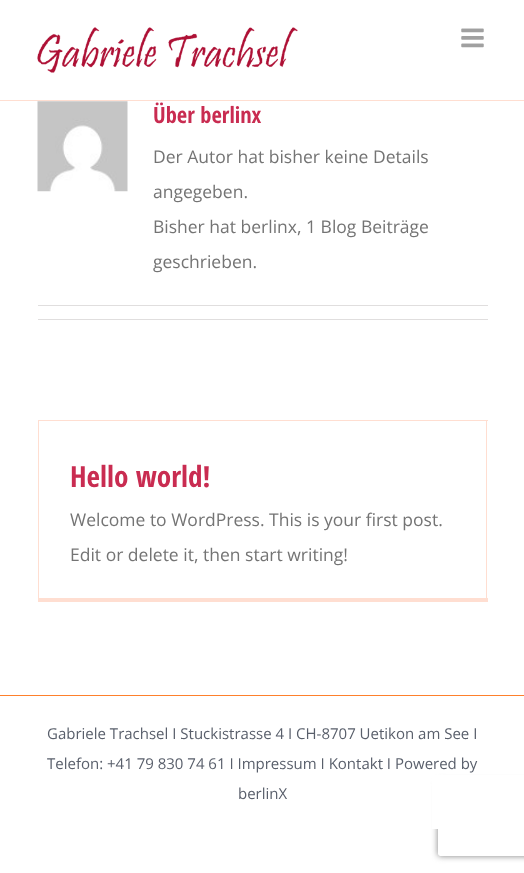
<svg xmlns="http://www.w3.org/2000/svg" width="524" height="873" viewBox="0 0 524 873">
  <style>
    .t1 { font: bold 22.5px Open Sans Condensed; fill: #c92c51; }
    .t2 { font: 17.5px Open Sans; fill: #747474; }
    .t3 { font: bold 29.25px Open Sans Condensed; fill: #c92c51; }
    .t4 { font: 15px Open Sans; fill: #595f6b; }
  </style>
  <defs>
    <clipPath id="clip1"><path d="M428 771H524V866H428ZM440.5 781H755.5C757 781 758 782 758 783.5V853.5C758 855 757 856 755.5 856H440.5C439 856 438 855 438 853.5V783.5C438 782 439 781 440.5 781Z" clip-rule="evenodd"/></clipPath>
  </defs>
  <rect width="100%" height="100%" fill="#fff"/>
  <rect x="0" y="100" width="524" height="1" fill="#ffded1"/>
  <image x="37" y="27" width="261" height="46" href="images/1.png"/>
  <image x="461" y="28" width="23" height="20" href="images/2.png"/>
  <image x="37" y="101" width="91" height="91" href="images/3.png"/>
  <text x="153" y="123" class="t1">Über berlinx</text>
  <text x="153" y="163" class="t2">Der Autor hat bisher keine Details</text>
  <text x="153" y="198" class="t2">angegeben.</text>
  <text x="153" y="233" class="t2">Bisher hat berlinx, 1 Blog Beiträge</text>
  <text x="153" y="268" class="t2">geschrieben.</text>
  <rect x="38" y="305" width="450" height="1" fill="#e0dede"/>
  <rect x="38" y="319" width="450" height="1" fill="#e0dede"/>
  <rect x="38" y="420" width="450" height="1" fill="#ffded1"/>
  <rect x="486" y="420" width="1" height="181" fill="#ffded1"/>
  <rect x="38" y="598" width="450" height="4" fill="#ffded1"/>
  <rect x="38" y="420" width="1" height="181" fill="#ffded1"/>
  <text x="70" y="487" class="t3">Hello world!</text>
  <text x="70" y="526" class="t2">Welcome to WordPress. This is your first post.</text>
  <text x="70" y="561" class="t2">Edit or delete it, then start writing!</text>
  <g clip-path="url(#clip1)">
    <rect x="438" y="781" width="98" height="75" rx="2.5" fill="#808080" filter="blur(3px)"/>
  </g>
  <rect x="432" y="775" width="92" height="54" fill="#fff"/>
  <rect x="0" y="695" width="524" height="1" fill="#fe802c"/>
  <text x="47" y="739" class="t4">Gabriele Trachsel I Stuckistrasse 4 I CH-8707 Uetikon am See I</text>
  <text x="47" y="769" class="t4">Telefon: +41 79 830 74 61 I Impressum I Kontakt I Powered by</text>
  <text x="238" y="799" class="t4">berlinX</text>
</svg>
